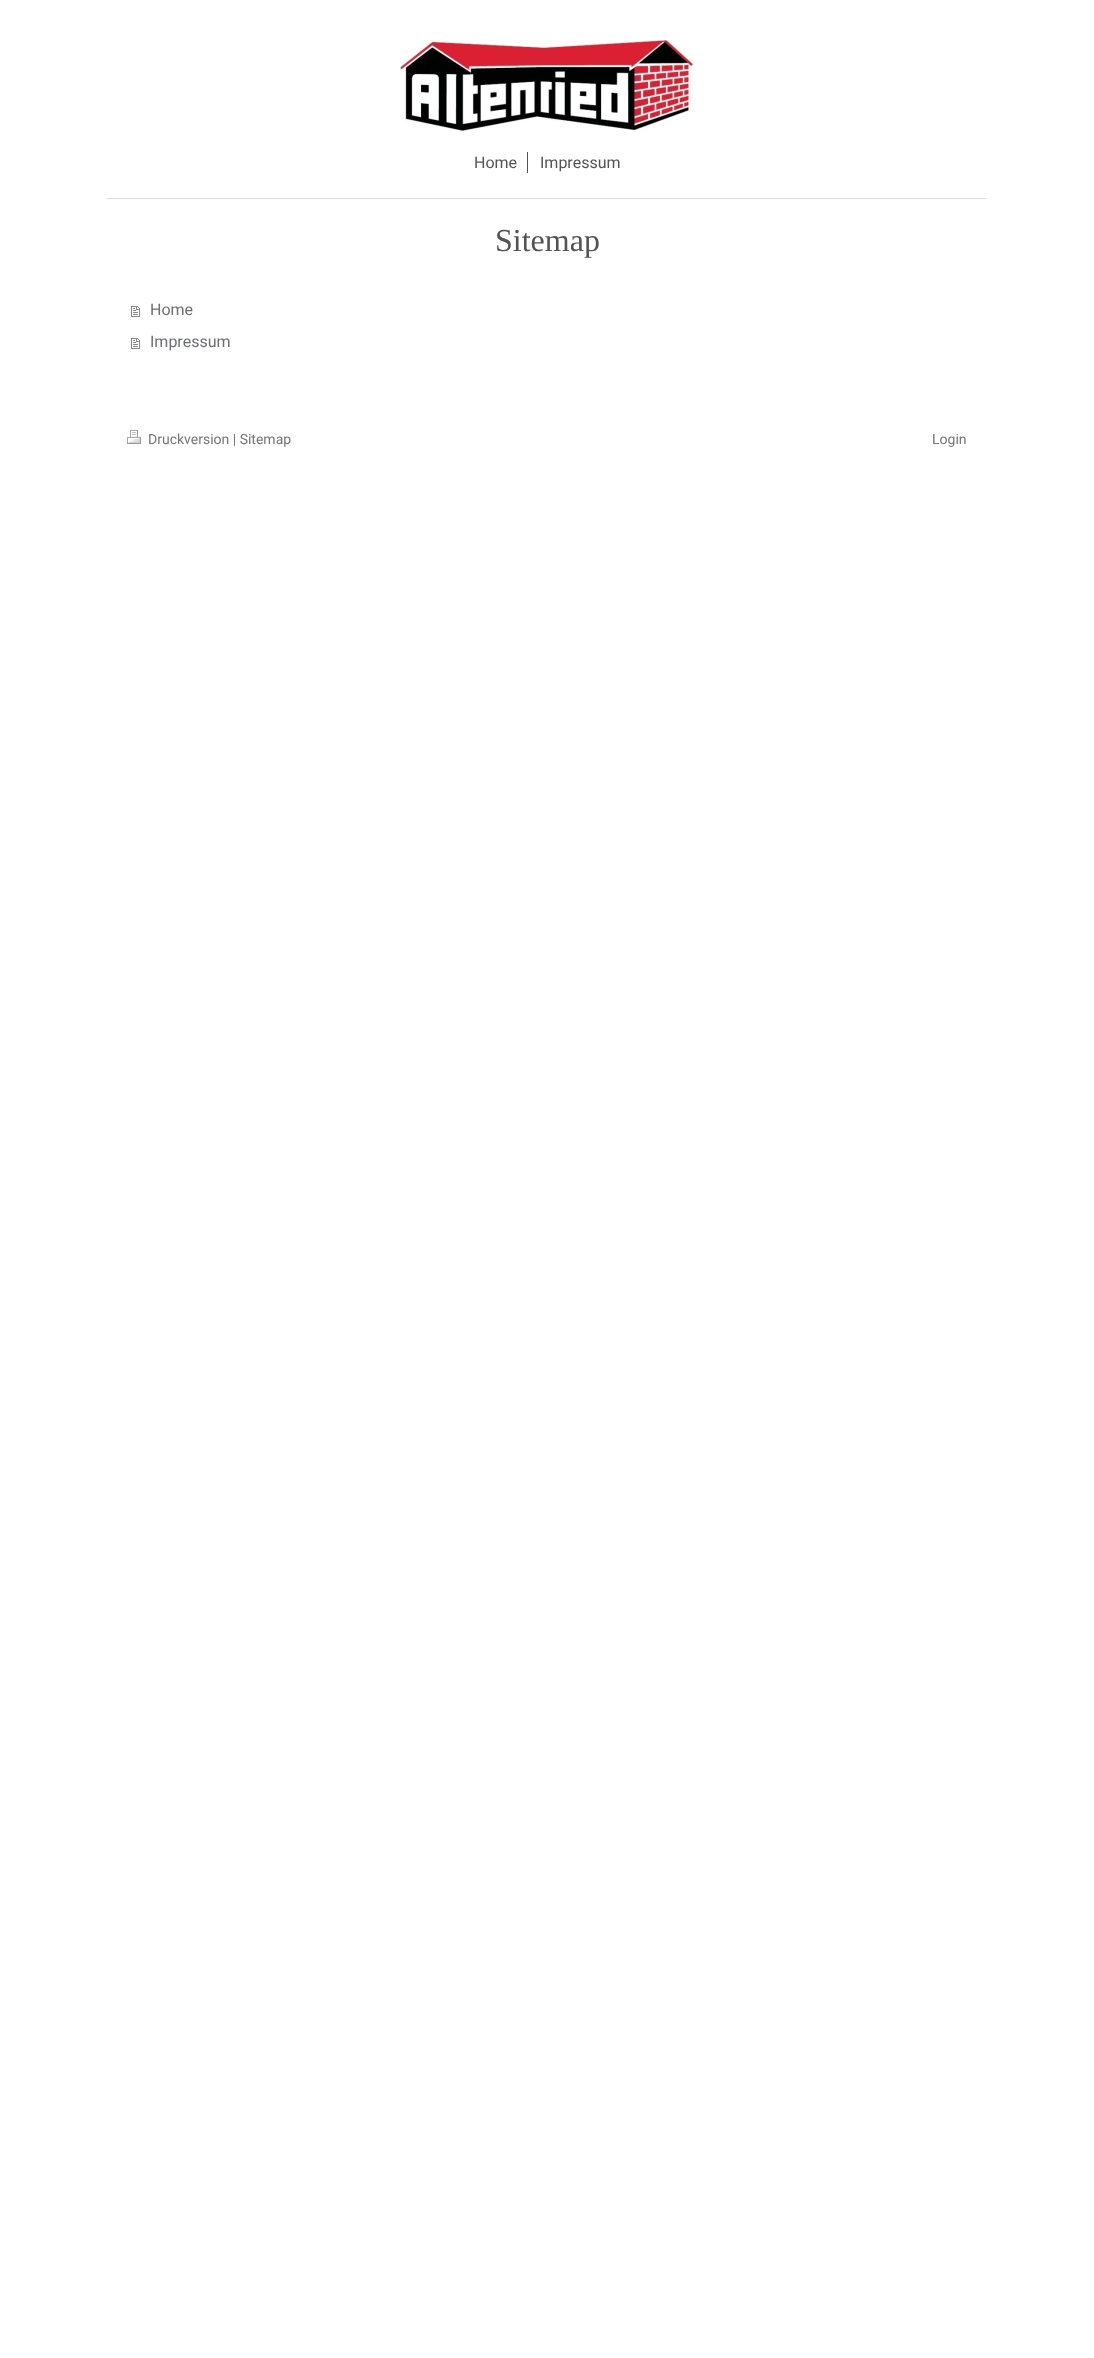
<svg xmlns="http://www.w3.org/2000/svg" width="1094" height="2358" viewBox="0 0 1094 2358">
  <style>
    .t1 { font: 16px Roboto; fill: #535353; }
    .t2 { font: 32px Liberation Serif; fill: #535353; }
    .t3 { font: 16px Roboto; fill: #6e6f73; }
    .t4 { font: 14px Roboto; fill: #757575; }
  </style>
  <rect width="100%" height="100%" fill="#fff"/>
  <image x="400" y="40" width="294" height="91" href="images/1.png"/>
  <rect x="107" y="198" width="880" height="1" fill="#ddd"/>
  <rect x="527" y="152" width="1" height="21" fill="#535353"/>
  <text x="474" y="168" class="t1">Home</text>
  <text x="540" y="168" class="t1">Impressum</text>
  <text x="495" y="251" class="t2">Sitemap</text>
  <image x="131" y="306" width="9" height="11" href="images/2.png"/>
  <text x="150" y="315" class="t3">Home</text>
  <image x="131" y="338" width="9" height="11" href="images/2.png"/>
  <text x="150" y="347" class="t3">Impressum</text>
  <image x="127" y="430" width="14" height="14" href="images/3.png"/>
  <text x="148" y="444" class="t4">Druckversion | Sitemap</text>
  <text x="932" y="444" class="t4">Login</text>
</svg>
